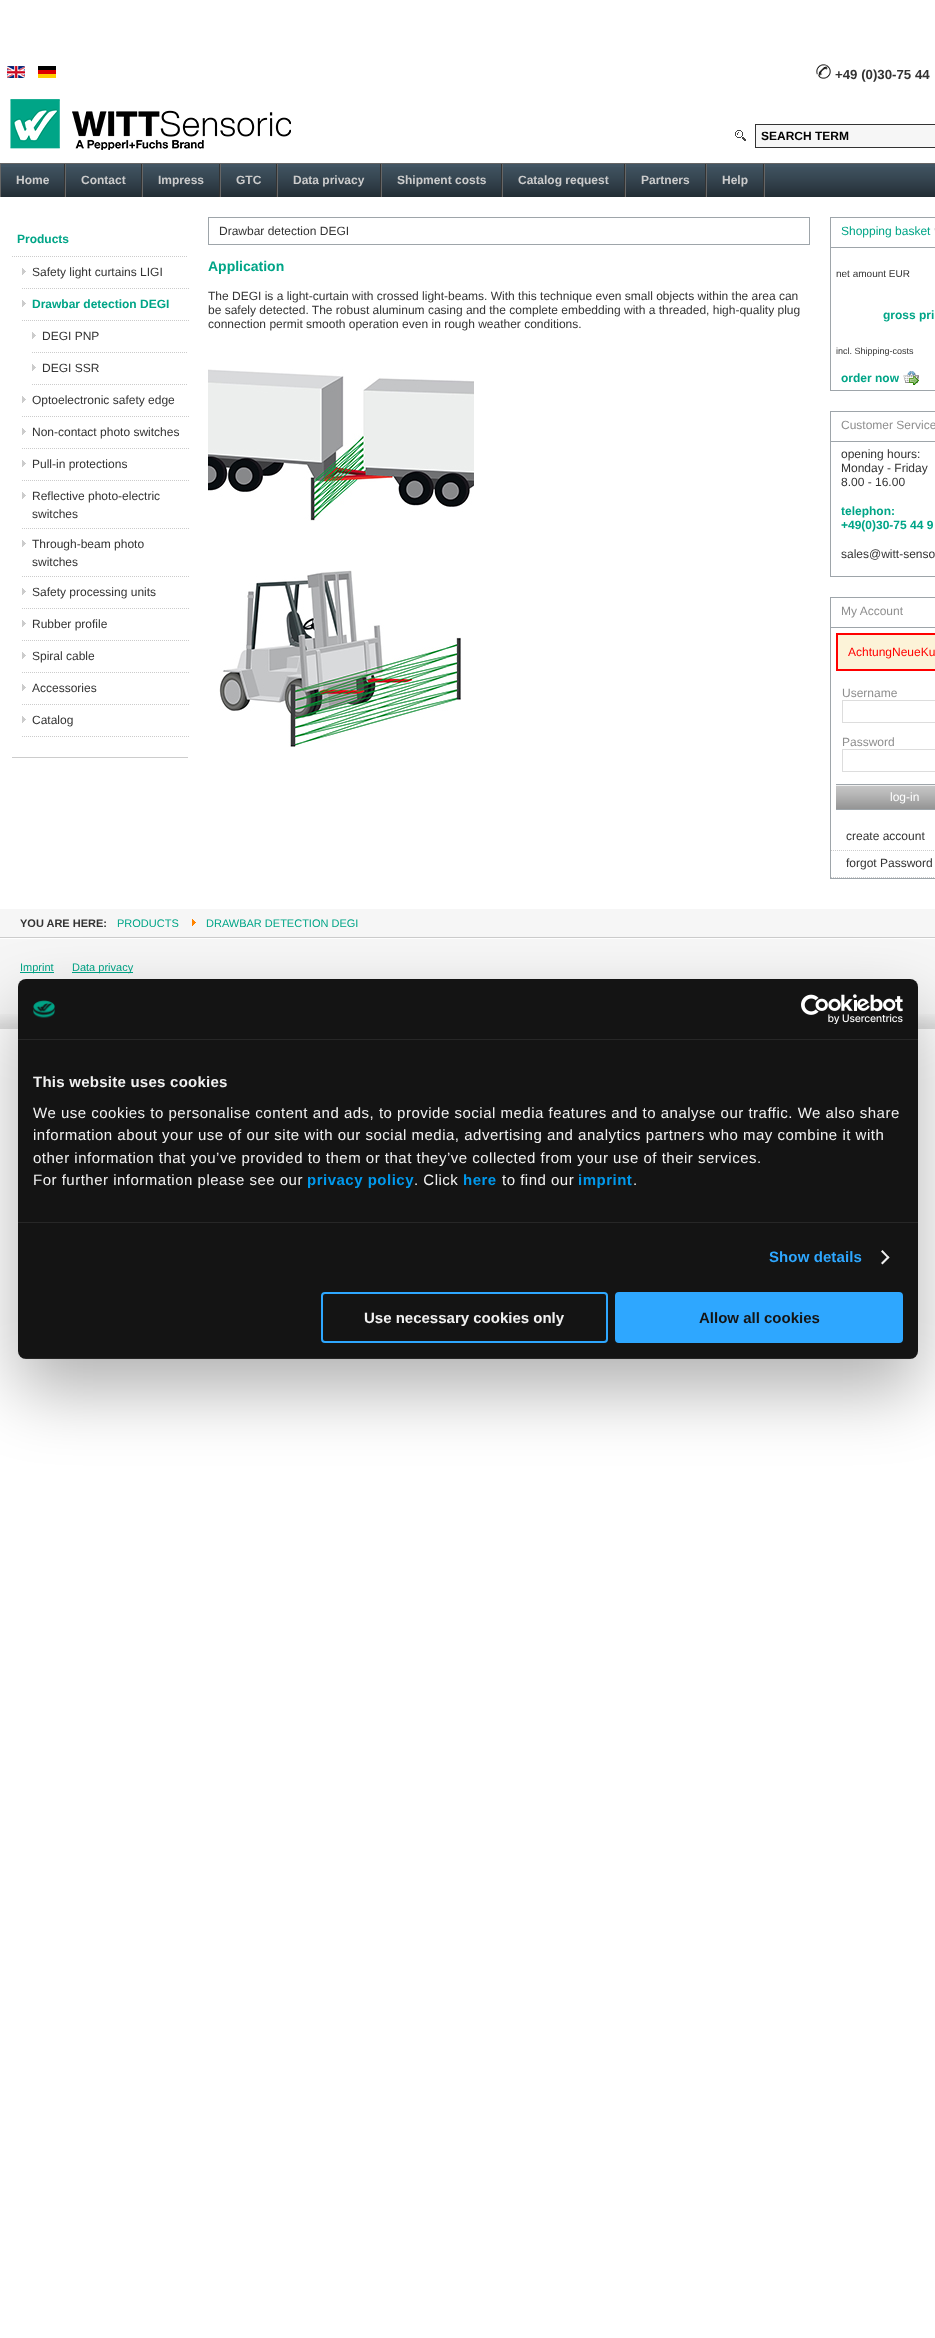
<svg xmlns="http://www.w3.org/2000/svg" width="935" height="2338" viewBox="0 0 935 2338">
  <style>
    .t1 { font: bold 13.25px Liberation Sans; fill: #333; }
    .t2 { font: bold 12px Liberation Sans; fill: #000; }
    .t3 { font: bold 12px Liberation Sans; fill: #ccc; }
    .t4 { font: bold 12px Liberation Sans; fill: #00a587; }
    .t5 { font: 12px Liberation Sans; fill: #333; }
    .t6 { font: bold 14px Liberation Sans; fill: #00a587; }
    .t7 { font: 12px Liberation Sans; fill: #00a587; }
    .t8 { font: 10px Liberation Sans; fill: #333; }
    .t9 { font: 9px Liberation Sans; fill: #333; }
    .t10 { font: 12px Liberation Sans; fill: #8f8f8f; }
    .t11 { font: 12px Liberation Sans; fill: #f00; }
    .t12 { font: 12px Liberation Sans; fill: #fff; }
    .t13 { font: bold 11px Liberation Sans; fill: #333; }
    .t14 { font: 11px Liberation Sans; fill: #00a587; }
    .t15 { font: bold 15px Liberation Sans; letter-spacing: 0.25px; fill: #f2f2f2; }
    .t16 { font: 15px Liberation Sans; letter-spacing: 0.5px; fill: #f2f2f2; }
    .t17 { font: bold 15px Liberation Sans; letter-spacing: 0.5px; fill: #009aee; }
    .t18 { font: bold 15px Liberation Sans; letter-spacing: 0.1px; fill: #2ea7ff; }
    .t19 { font: bold 15px Liberation Sans; fill: #f2f2f2; }
    .t20 { font: bold 15px Liberation Sans; fill: #141414; }
  </style>
  <defs>
    <clipPath id="clip1"><rect x="12" y="217" width="176" height="40"/></clipPath>
    <clipPath id="clip2"><rect x="12" y="257" width="176" height="480"/></clipPath>
    <clipPath id="clip3"><rect x="836" y="781" width="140" height="32"/></clipPath>
    <clipPath id="clip4"><rect x="18" y="979" width="900" height="380" rx="8"/></clipPath>
  </defs>
  <rect width="100%" height="100%" fill="#fff"/>
  <image x="10" y="99" width="281" height="51" href="images/1.png"/>
  <image x="7" y="66" width="18" height="12" href="images/2.png"/>
  <image x="38" y="66" width="18" height="12" href="images/3.png"/>
  <image x="816" y="64" width="15" height="15" href="images/4.png"/>
  <text x="835" y="79" class="t1">+49 (0)30-75 44</text>
  <image x="735" y="130" width="11" height="11" href="images/5.png"/>
  <rect x="755.5" y="124.5" width="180" height="23" fill="#f6f6f6" stroke="#333"/>
  <text x="761" y="140" class="t2">SEARCH TERM</text>
  <rect x="1" y="164" width="934" height="33" fill="#425563"/>
  <image x="1" y="167" width="934" height="30" href="images/6.png"/>
  <rect x="0" y="163" width="935" height="1" fill="#666"/>
  <rect x="0" y="164" width="1" height="33" fill="#666"/>
  <rect x="65" y="164" width="1" height="33" fill="#666"/>
  <rect x="64" y="164" width="1" height="33" fill="#333"/>
  <text x="16" y="184" class="t3">Home</text>
  <rect x="142" y="164" width="1" height="33" fill="#666"/>
  <rect x="141" y="164" width="1" height="33" fill="#333"/>
  <text x="81" y="184" class="t3">Contact</text>
  <rect x="220" y="164" width="1" height="33" fill="#666"/>
  <rect x="219" y="164" width="1" height="33" fill="#333"/>
  <text x="158" y="184" class="t3">Impress</text>
  <rect x="277" y="164" width="1" height="33" fill="#666"/>
  <rect x="276" y="164" width="1" height="33" fill="#333"/>
  <text x="236" y="184" class="t3">GTC</text>
  <rect x="381" y="164" width="1" height="33" fill="#666"/>
  <rect x="380" y="164" width="1" height="33" fill="#333"/>
  <text x="293" y="184" class="t3">Data privacy</text>
  <rect x="502" y="164" width="1" height="33" fill="#666"/>
  <rect x="501" y="164" width="1" height="33" fill="#333"/>
  <text x="397" y="184" class="t3">Shipment costs</text>
  <rect x="625" y="164" width="1" height="33" fill="#666"/>
  <rect x="624" y="164" width="1" height="33" fill="#333"/>
  <text x="518" y="184" class="t3">Catalog request</text>
  <rect x="706" y="164" width="1" height="33" fill="#666"/>
  <rect x="705" y="164" width="1" height="33" fill="#333"/>
  <text x="641" y="184" class="t3">Partners</text>
  <rect x="764" y="164" width="1" height="33" fill="#666"/>
  <rect x="763" y="164" width="1" height="33" fill="#333"/>
  <text x="722" y="184" class="t3">Help</text>
  <rect x="12" y="757" width="176" height="1" fill="#ccc"/>
  <g clip-path="url(#clip1)">
    <path d="M12 256.5H198" fill="none" stroke="#ccc" stroke-dasharray="1 1"/>
  </g>
  <text x="17" y="243" class="t4">Products</text>
  <image x="22" y="268" width="4" height="7" href="images/7.png"/>
  <path d="M22 288.5H190" fill="none" stroke="#ccc" stroke-dasharray="1 1"/>
  <text x="32" y="276" class="t5">Safety light curtains LIGI</text>
  <image x="22" y="300" width="4" height="7" href="images/7.png"/>
  <path d="M22 320.5H190" fill="none" stroke="#ccc" stroke-dasharray="1 1"/>
  <text x="32" y="308" class="t4">Drawbar detection DEGI</text>
  <image x="32" y="332" width="4" height="7" href="images/7.png"/>
  <g clip-path="url(#clip2)">
    <path d="M32 352.5H208" fill="none" stroke="#ccc" stroke-dasharray="1 1"/>
  </g>
  <text x="42" y="340" class="t5">DEGI PNP</text>
  <image x="32" y="364" width="4" height="7" href="images/7.png"/>
  <g clip-path="url(#clip2)">
    <path d="M32 384.5H208" fill="none" stroke="#ccc" stroke-dasharray="1 1"/>
  </g>
  <text x="42" y="372" class="t5">DEGI SSR</text>
  <image x="22" y="396" width="4" height="7" href="images/7.png"/>
  <path d="M22 416.5H190" fill="none" stroke="#ccc" stroke-dasharray="1 1"/>
  <text x="32" y="404" class="t5">Optoelectronic safety edge</text>
  <image x="22" y="428" width="4" height="7" href="images/7.png"/>
  <path d="M22 448.5H190" fill="none" stroke="#ccc" stroke-dasharray="1 1"/>
  <text x="32" y="436" class="t5">Non-contact photo switches</text>
  <image x="22" y="460" width="4" height="7" href="images/7.png"/>
  <path d="M22 480.5H190" fill="none" stroke="#ccc" stroke-dasharray="1 1"/>
  <text x="32" y="468" class="t5">Pull-in protections</text>
  <image x="22" y="492" width="4" height="7" href="images/7.png"/>
  <path d="M22 528.5H190" fill="none" stroke="#ccc" stroke-dasharray="1 1"/>
  <text x="32" y="500" class="t5">Reflective photo-electric</text>
  <text x="32" y="518" class="t5">switches</text>
  <image x="22" y="540" width="4" height="7" href="images/7.png"/>
  <path d="M22 576.5H190" fill="none" stroke="#ccc" stroke-dasharray="1 1"/>
  <text x="32" y="548" class="t5">Through-beam photo</text>
  <text x="32" y="566" class="t5">switches</text>
  <image x="22" y="588" width="4" height="7" href="images/7.png"/>
  <path d="M22 608.5H190" fill="none" stroke="#ccc" stroke-dasharray="1 1"/>
  <text x="32" y="596" class="t5">Safety processing units</text>
  <image x="22" y="620" width="4" height="7" href="images/7.png"/>
  <path d="M22 640.5H190" fill="none" stroke="#ccc" stroke-dasharray="1 1"/>
  <text x="32" y="628" class="t5">Rubber profile</text>
  <image x="22" y="652" width="4" height="7" href="images/7.png"/>
  <path d="M22 672.5H190" fill="none" stroke="#ccc" stroke-dasharray="1 1"/>
  <text x="32" y="660" class="t5">Spiral cable</text>
  <image x="22" y="684" width="4" height="7" href="images/7.png"/>
  <path d="M22 704.5H190" fill="none" stroke="#ccc" stroke-dasharray="1 1"/>
  <text x="32" y="692" class="t5">Accessories</text>
  <image x="22" y="716" width="4" height="7" href="images/7.png"/>
  <path d="M22 736.5H190" fill="none" stroke="#ccc" stroke-dasharray="1 1"/>
  <text x="32" y="724" class="t5">Catalog</text>
  <rect x="208.5" y="217.5" width="601" height="27" fill="none" stroke="#9ea5aa"/>
  <text x="219" y="235" class="t5">Drawbar detection DEGI</text>
  <text x="208" y="271" class="t6">Application</text>
  <text x="208" y="300" class="t5">The DEGI is a light-curtain with crossed light-beams. With this technique even small objects within the area can</text>
  <text x="208" y="314" class="t5">be safely detected. The robust aluminum casing and the complete embedding with a threaded, high-quality plug</text>
  <text x="208" y="328" class="t5">connection permit smooth operation even in rough weather conditions.</text>
  <image x="208" y="369" width="266" height="152" href="images/8.png"/>
  <image x="219" y="570" width="242" height="177" href="images/9.png"/>
  <rect x="830.5" y="217.5" width="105" height="173" fill="none" stroke="#9ea5aa"/>
  <rect x="831" y="247" width="104" height="1" fill="#9ea5aa"/>
  <text x="841" y="235" class="t7">Shopping basket</text>
  <image x="934" y="228" width="1" height="3" href="images/10.png"/>
  <text x="836" y="277" class="t8">net amount EUR</text>
  <text x="883" y="319" class="t4">gross pri</text>
  <text x="836" y="354" class="t9">incl. Shipping-costs</text>
  <text x="841" y="382" class="t4">order now</text>
  <image x="903" y="371" width="16" height="14" href="images/11.png"/>
  <rect x="830.5" y="411.5" width="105" height="165" fill="none" stroke="#9ea5aa"/>
  <rect x="831" y="441" width="104" height="1" fill="#9ea5aa"/>
  <text x="841" y="429" class="t10">Customer Service</text>
  <text x="841" y="458" class="t5">opening hours:</text>
  <text x="841" y="472" class="t5">Monday - Friday</text>
  <text x="841" y="486" class="t5">8.00 - 16.00</text>
  <text x="841" y="515" class="t4">telephon:</text>
  <text x="841" y="529" class="t4">+49(0)30-75 44 9</text>
  <text x="841" y="558" class="t5">sales@witt-senso</text>
  <rect x="830.5" y="597.5" width="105" height="281" fill="none" stroke="#9ea5aa"/>
  <rect x="831" y="627" width="104" height="1" fill="#9ea5aa"/>
  <text x="841" y="615" class="t10">My Account</text>
  <rect x="837" y="634" width="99" height="36" fill="#fcf3d8" stroke="#f00" stroke-width="2"/>
  <text x="848" y="656" class="t11">AchtungNeueKu</text>
  <text x="842" y="697" class="t10">Username</text>
  <rect x="842.5" y="700.5" width="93" height="22" fill="none" stroke="#ddd"/>
  <text x="842" y="746" class="t10">Password</text>
  <rect x="842.5" y="749.5" width="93" height="22" fill="none" stroke="#ddd"/>
  <image x="836" y="785" width="99" height="24" href="images/12.png"/>
  <g clip-path="url(#clip3)">
    <rect x="834.5" y="784.5" width="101" height="25" fill="none" stroke="#9ea5aa"/>
  </g>
  <text x="890" y="801" class="t12">log-in</text>
  <path d="M831 850.5H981" fill="none" stroke="#ccc" stroke-dasharray="1 1"/>
  <text x="846" y="840" class="t5">create account</text>
  <path d="M831 877.5H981" fill="none" stroke="#ccc" stroke-dasharray="1 1"/>
  <text x="846" y="867" class="t5">forgot Password</text>
  <rect x="0" y="909" width="935" height="28" fill="#f6f6f6"/>
  <rect x="0" y="937" width="935" height="1" fill="#ccc"/>
  <text x="20" y="927" class="t13">YOU ARE HERE:</text>
  <text x="117" y="927" class="t14">PRODUCTS</text>
  <image x="192" y="919" width="4" height="7" href="images/13.png"/>
  <text x="206" y="927" class="t14">DRAWBAR DETECTION DEGI</text>
  <rect x="0" y="939" width="935" height="75" fill="#f6f6f6"/>
  <image x="0" y="1014" width="935" height="15" href="images/14.png"/>
  <rect x="20" y="972" width="34" height="1" fill="#00a587"/>
  <text x="20" y="971" class="t14">Imprint</text>
  <rect x="72" y="972" width="61" height="1" fill="#00a587"/>
  <text x="72" y="971" class="t14">Data privacy</text>
  <rect x="18" y="1011" width="900" height="380" rx="8" fill="#0000004d" filter="blur(34px)"/>
  <rect x="18" y="979" width="900" height="380" rx="8" fill="#141414"/>
  <rect x="18" y="1039" width="900" height="1" fill="#272727"/>
  <image x="33" y="1000" width="22" height="18" href="images/15.png"/>
  <image x="801" y="994" width="102" height="30" href="images/16.png"/>
  <rect x="18" y="1222" width="900" height="1" fill="#272727"/>
  <text x="33" y="1087" class="t15">This website uses cookies</text>
  <text x="33" y="1118" class="t16">We use cookies to personalise content and ads, to provide social media features and to analyse our traffic. We also share</text>
  <text x="33" y="1140" class="t16">information about your use of our site with our social media, advertising and analytics partners who may combine it with</text>
  <text x="33" y="1163" class="t16">other information that you’ve provided to them or that they’ve collected from your use of their services.</text>
  <text x="33" y="1185" class="t16">For further information please see our</text>
  <text x="307" y="1185" class="t17">privacy policy</text>
  <text x="414" y="1185" class="t16">. Click</text>
  <text x="463" y="1185" class="t17">here</text>
  <text x="502" y="1185" class="t16">to find our</text>
  <text x="578" y="1185" class="t17">imprint</text>
  <text x="633" y="1185" class="t16">.</text>
  <text x="769" y="1262" class="t18">Show details</text>
  <path d="M882.5 1250L889.5 1257.5L888 1258.5L881 1251.5Z" fill="#f2f2f2"/>
  <path d="M888 1256L889.5 1257.5L882.5 1264.5L881 1263Z" fill="#f2f2f2"/>
  <g clip-path="url(#clip4)">
    <rect x="18" y="1358" width="900" height="1" fill="#ffffff14"/>
  </g>
  <rect x="322" y="1293" width="285" height="49" rx="3" fill="none" stroke="#2ea7ff" stroke-width="2"/>
  <text x="364" y="1323" class="t19">Use necessary cookies only</text>
  <rect x="616" y="1293" width="286" height="49" rx="3" fill="#2ea7ff" stroke="#2ea7ff" stroke-width="2"/>
  <text x="699" y="1323" class="t20">Allow all cookies</text>
</svg>
